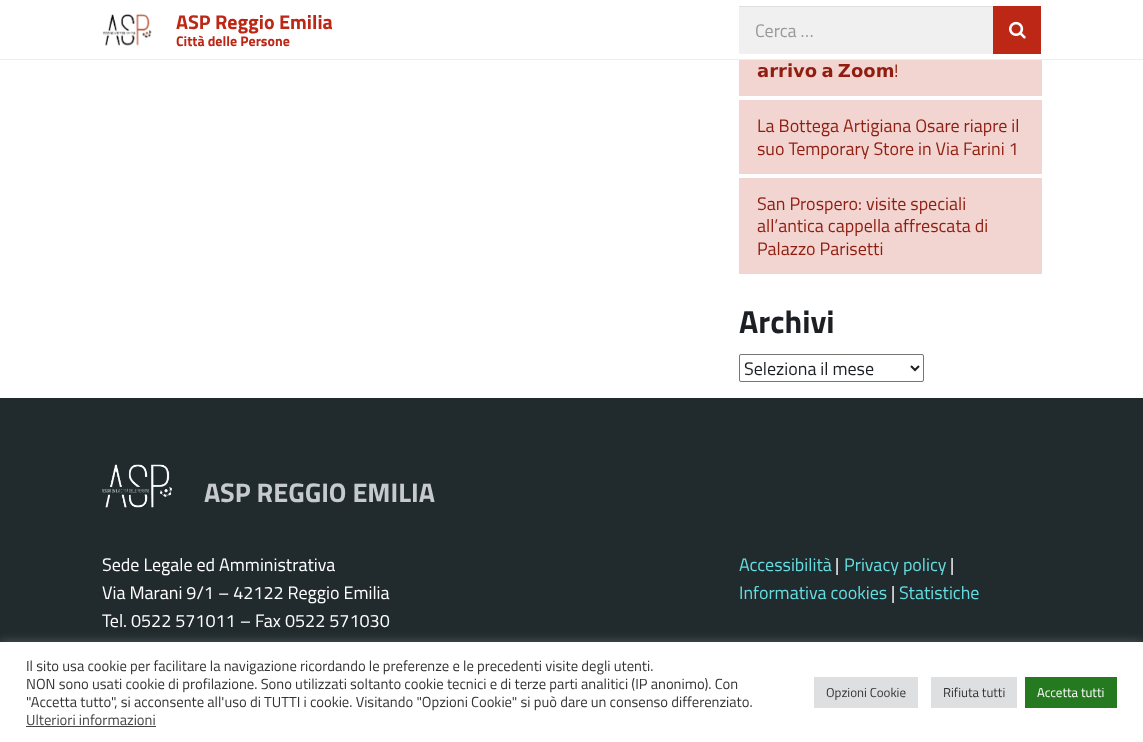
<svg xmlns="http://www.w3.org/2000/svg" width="1143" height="742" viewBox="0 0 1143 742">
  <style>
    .t1 { font: bold 20px Titillium Web; fill: #bd2716; }
    .t2 { font: bold 14px Titillium Web; fill: #bd2716; }
    .t3 { font: 18px Titillium Web; fill: #999; }
    .t4 { font: bold 18px DejaVu Sans; fill: #8f1e11; }
    .t5 { font: 18px Titillium Web; fill: #8f1e11; }
    .t6 { font: bold 32px Titillium Web; fill: #1c2024; }
    .t7 { font: 18px Titillium Web; fill: #1c2024; }
    .t8 { font: bold 27px Titillium Web; fill: #c6cace; }
    .t9 { font: 18px Titillium Web; fill: #fff; }
    .t10 { font: 18px Titillium Web; fill: #65dde0; }
    .t11 { font: 14.65px Titillium Web; fill: #333; }
    .t12 { font: 14.65px Titillium Web; fill: #444; }
    .t13 { font: 13px Titillium Web; fill: #333; }
    .t14 { font: 13px Titillium Web; fill: #fff; }
  </style>
  <rect width="100%" height="100%" fill="#fff"/>
  <rect x="0" y="59" width="1143" height="1" fill="#eee"/>
  <image x="102" y="13" width="50" height="33" href="images/1.png"/>
  <text x="176" y="29" class="t1">ASP Reggio Emilia</text>
  <text x="176" y="46" class="t2">Città delle Persone</text>
  <rect x="739" y="7" width="254" height="47" fill="#f0f0f0"/>
  <rect x="739" y="6" width="254" height="1" fill="#dedede"/>
  <text x="755" y="37" class="t3">Cerca …</text>
  <rect x="993" y="6" width="48" height="48" fill="#bd2716"/>
  <image x="1009" y="21" width="17" height="18" href="images/2.png"/>
  <rect x="739" y="60" width="303" height="36" fill="#f2d4d0"/>
  <text x="757" y="77" word-spacing="-2" class="t4">𝗮𝗿𝗿𝗶𝘃𝗼 𝗮 𝗭𝗼𝗼𝗺</text>
  <text x="894" y="77" class="t5">!</text>
  <rect x="739" y="100" width="303" height="74" fill="#f2d4d0"/>
  <text x="757" y="132" class="t5">La Bottega Artigiana Osare riapre il</text>
  <text x="757" y="155" class="t5">suo Temporary Store in Via Farini 1</text>
  <rect x="739" y="178" width="303" height="96" fill="#f2d4d0"/>
  <text x="757" y="210" class="t5">San Prospero: visite speciali</text>
  <text x="757" y="232" class="t5">all’antica cappella affrescata di</text>
  <text x="757" y="255" class="t5">Palazzo Parisetti</text>
  <text x="739" y="333" class="t6">Archivi</text>
  <rect x="739.5" y="354.5" width="184" height="27" rx="1.5" fill="none" stroke="#767676"/>
  <path d="M911 366L915 370L919 366" fill="none" stroke="#1c2024" stroke-width="2"/>
  <text x="744" y="375" class="t7">Seleziona il mese</text>
  <rect x="0" y="398" width="1143" height="244" fill="#212b2e"/>
  <image x="102" y="464" width="70" height="44" href="images/3.png"/>
  <text x="204" y="502" class="t8">ASP REGGIO EMILIA</text>
  <text x="102" y="571" class="t9">Sede Legale ed Amministrativa</text>
  <text x="102" y="599" class="t9">Via Marani 9/1 – 42122 Reggio Emilia</text>
  <text x="102" y="627" class="t9">Tel. 0522 571011 – Fax 0522 571030</text>
  <text x="739" y="571" class="t10">Accessibilità</text>
  <text x="835" y="571" class="t9">|</text>
  <text x="844" y="571" class="t10">Privacy policy</text>
  <text x="950" y="571" class="t9">|</text>
  <text x="739" y="599" class="t10">Informativa cookies</text>
  <text x="891" y="599" class="t9">|</text>
  <text x="899" y="599" class="t10">Statistiche</text>
  <rect x="0" y="641" width="1143" height="100" fill="#acabab4d" filter="blur(5px)"/>
  <rect x="0" y="642" width="1143" height="100" fill="#fff"/>
  <text x="26" y="671" class="t11">Il sito usa cookie per facilitare la navigazione ricordando le preferenze e le precedenti visite degli utenti.</text>
  <text x="26" y="689" class="t11">NON sono usati cookie di profilazione. Sono utilizzati soltanto cookie tecnici e di terze parti analitici (IP anonimo). Con</text>
  <text x="26" y="707" class="t11">"Accetta tutto", si acconsente all'uso di TUTTI i cookie. Visitando "Opzioni Cookie" si può dare un consenso differenziato.</text>
  <text x="26" y="725" class="t12">Ulteriori informazioni</text>
  <rect x="26" y="726" width="130" height="1" fill="#444"/>
  <rect x="814" y="677" width="104" height="31" fill="#dedfe0"/>
  <text x="826" y="697" class="t13">Opzioni Cookie</text>
  <rect x="931" y="677" width="86" height="31" fill="#dedfe0"/>
  <text x="943" y="697" class="t13">Rifiuta tutti</text>
  <rect x="1025" y="677" width="92" height="31" fill="#257a1f"/>
  <text x="1037" y="697" class="t14">Accetta tutti</text>
</svg>
